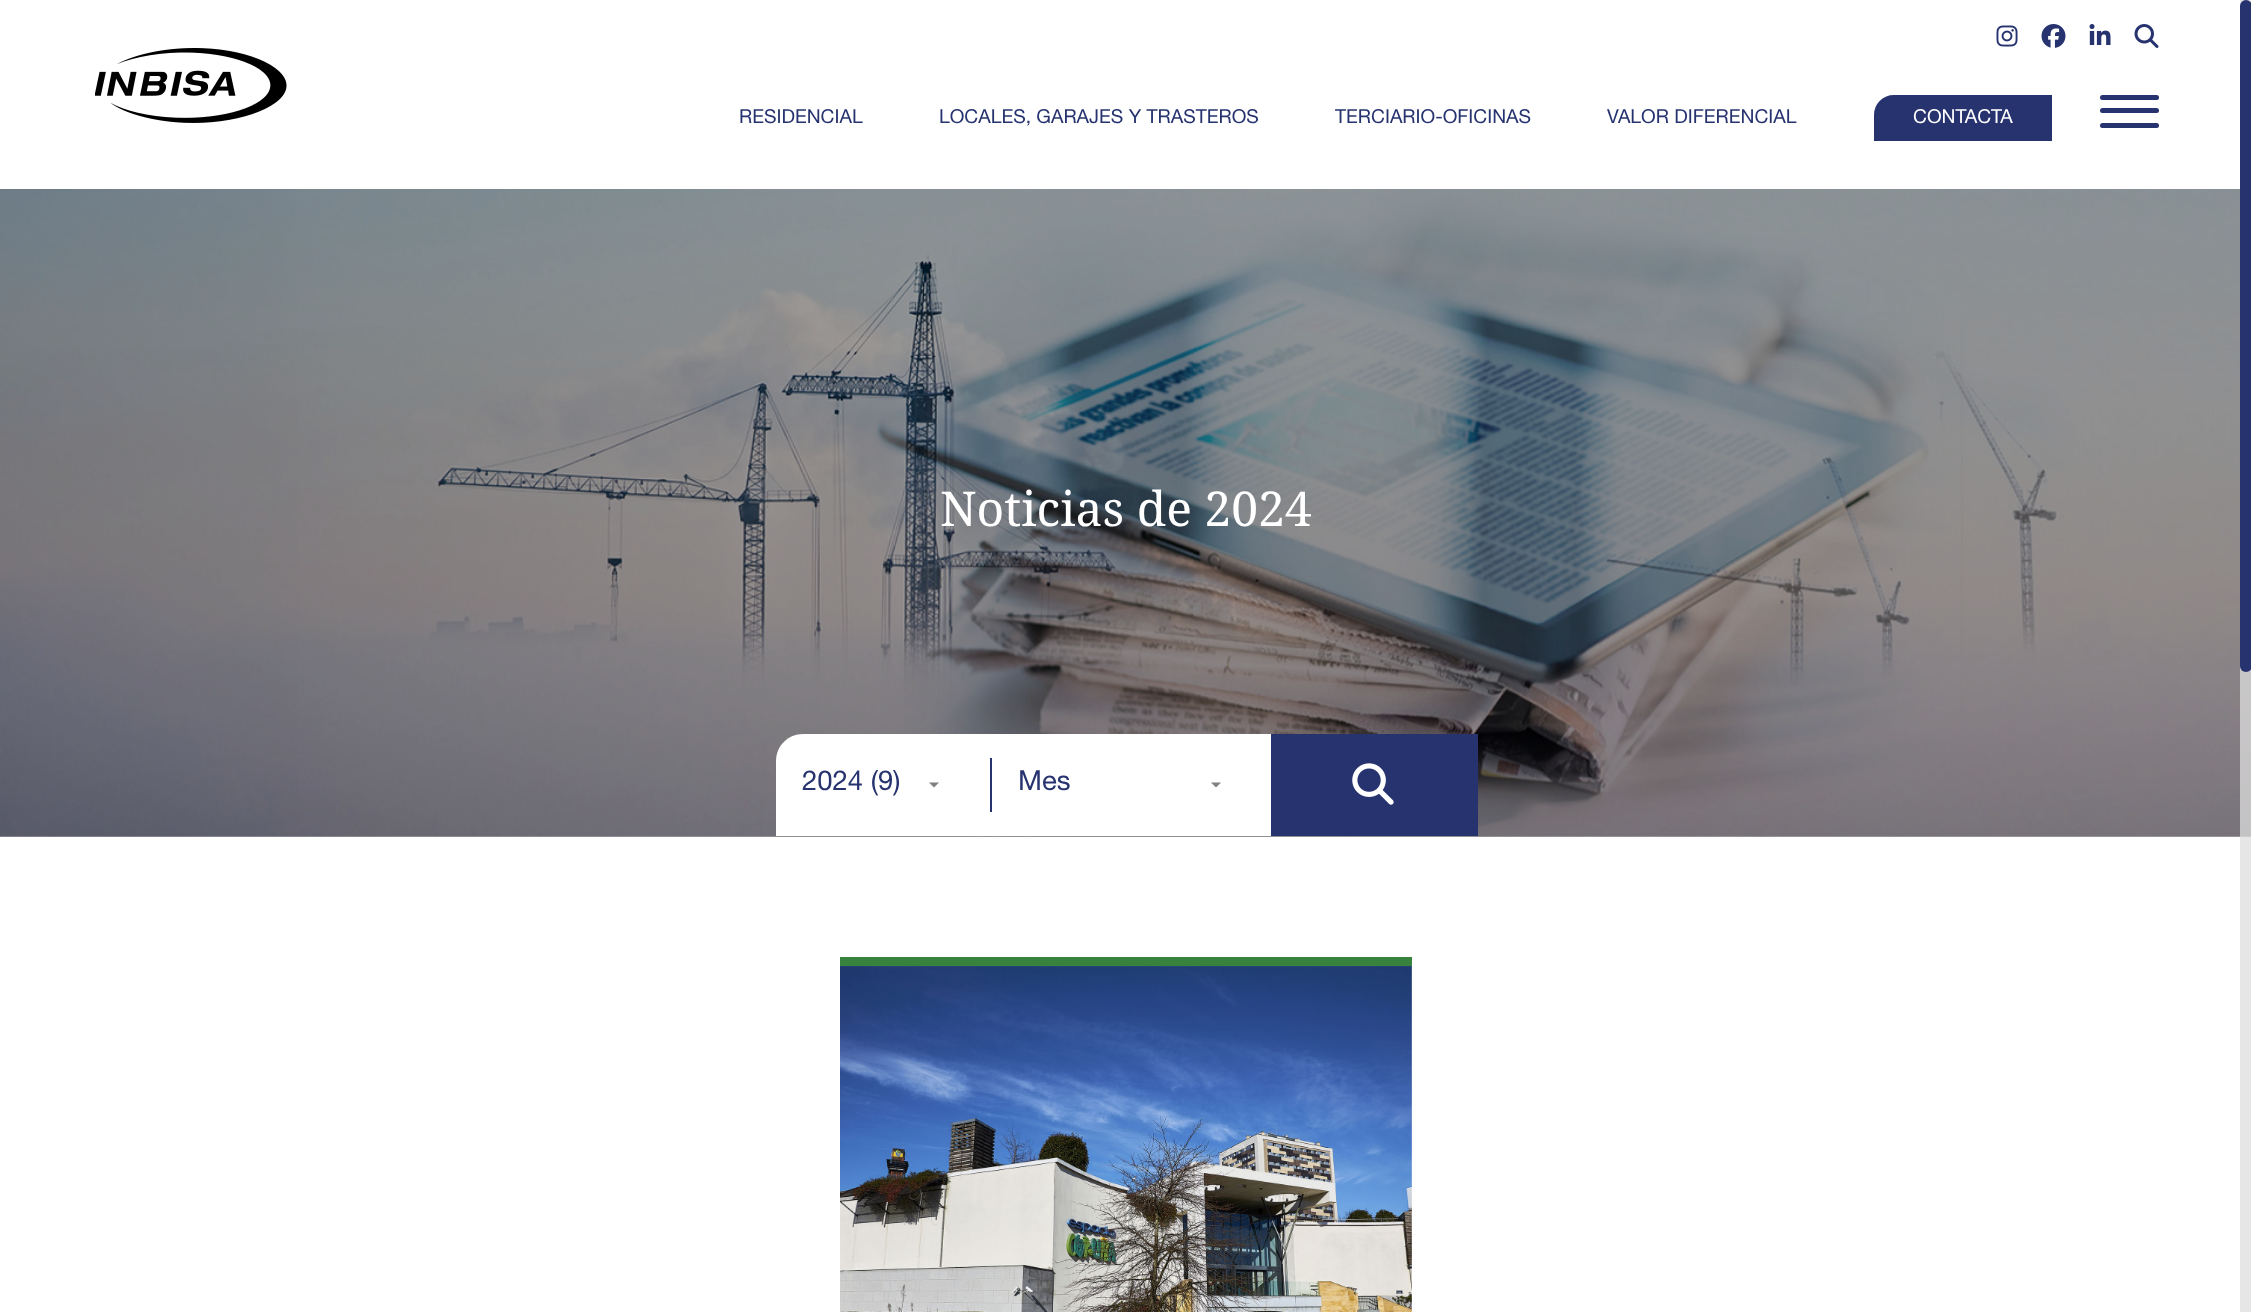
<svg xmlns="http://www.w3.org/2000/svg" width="2251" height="1312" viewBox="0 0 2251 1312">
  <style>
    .t1 { font: 19.25px Helvetica Neue; fill: #26336f; }
    .t2 { font: 19.25px Helvetica Neue; fill: #fff; }
    .t3 { font: 48px Noto Serif; fill: #fff; }
    .t4 { font: 27.5px Helvetica Neue; fill: #26336f; }
  </style>
  <rect width="100%" height="100%" fill="#fff"/>
  <image x="1996" y="25" width="22" height="22" href="images/1.png"/>
  <image x="2041" y="24" width="25" height="24" href="images/2.png"/>
  <image x="2089" y="24" width="22" height="21" href="images/3.png"/>
  <image x="2134" y="24" width="25" height="24" href="images/4.png"/>
  <image x="95" y="48" width="192" height="75" href="images/5.png"/>
  <text x="739" y="123" class="t1">RESIDENCIAL</text>
  <text x="939" y="123" class="t1">LOCALES, GARAJES Y TRASTEROS</text>
  <text x="1335" y="123" class="t1">TERCIARIO-OFICINAS</text>
  <text x="1607" y="123" class="t1">VALOR DIFERENCIAL</text>
  <path d="M1894 96H2051V140H1875V115C1875 104.5 1883.5 96 1894 96Z" fill="#26336f" stroke="#26336f" stroke-width="2"/>
  <text x="1913" y="123" class="t2">CONTACTA</text>
  <rect x="2100" y="95" width="59" height="5" rx="2.5" fill="#26336f"/>
  <rect x="2100" y="108" width="59" height="5" rx="2.5" fill="#26336f"/>
  <rect x="2100" y="123" width="59" height="5" rx="2.5" fill="#26336f"/>
  <image x="0" y="189" width="2251" height="648" href="images/6.png"/>
  <text x="940" y="526" class="t3">Noticias de 2024</text>
  <path d="M803 734H1478V836H776V761C776 746 788 734 803 734Z" fill="#fff"/>
  <rect x="990" y="758" width="2" height="54" fill="#26336f"/>
  <path d="M929 782.5L934 787.5L939 782.5Z" fill="#808080"/>
  <text x="802" y="790" class="t4">2024 (9)</text>
  <path d="M1211 782.5L1216 787.5L1221 782.5Z" fill="#808080"/>
  <text x="1018" y="790" class="t4">Mes</text>
  <rect x="1271" y="734" width="207" height="102" fill="#26336f"/>
  <image x="1352" y="763" width="42" height="42" href="images/7.png"/>
  <image x="840" y="966" width="572" height="346" href="images/8.png"/>
  <rect x="840" y="957" width="572" height="9" fill="#37823c"/>
  <rect x="2240" y="0" width="11" height="1312" fill="#dededebf"/>
  <rect x="2240" y="0" width="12" height="672" rx="6" fill="#26336f"/>
</svg>
